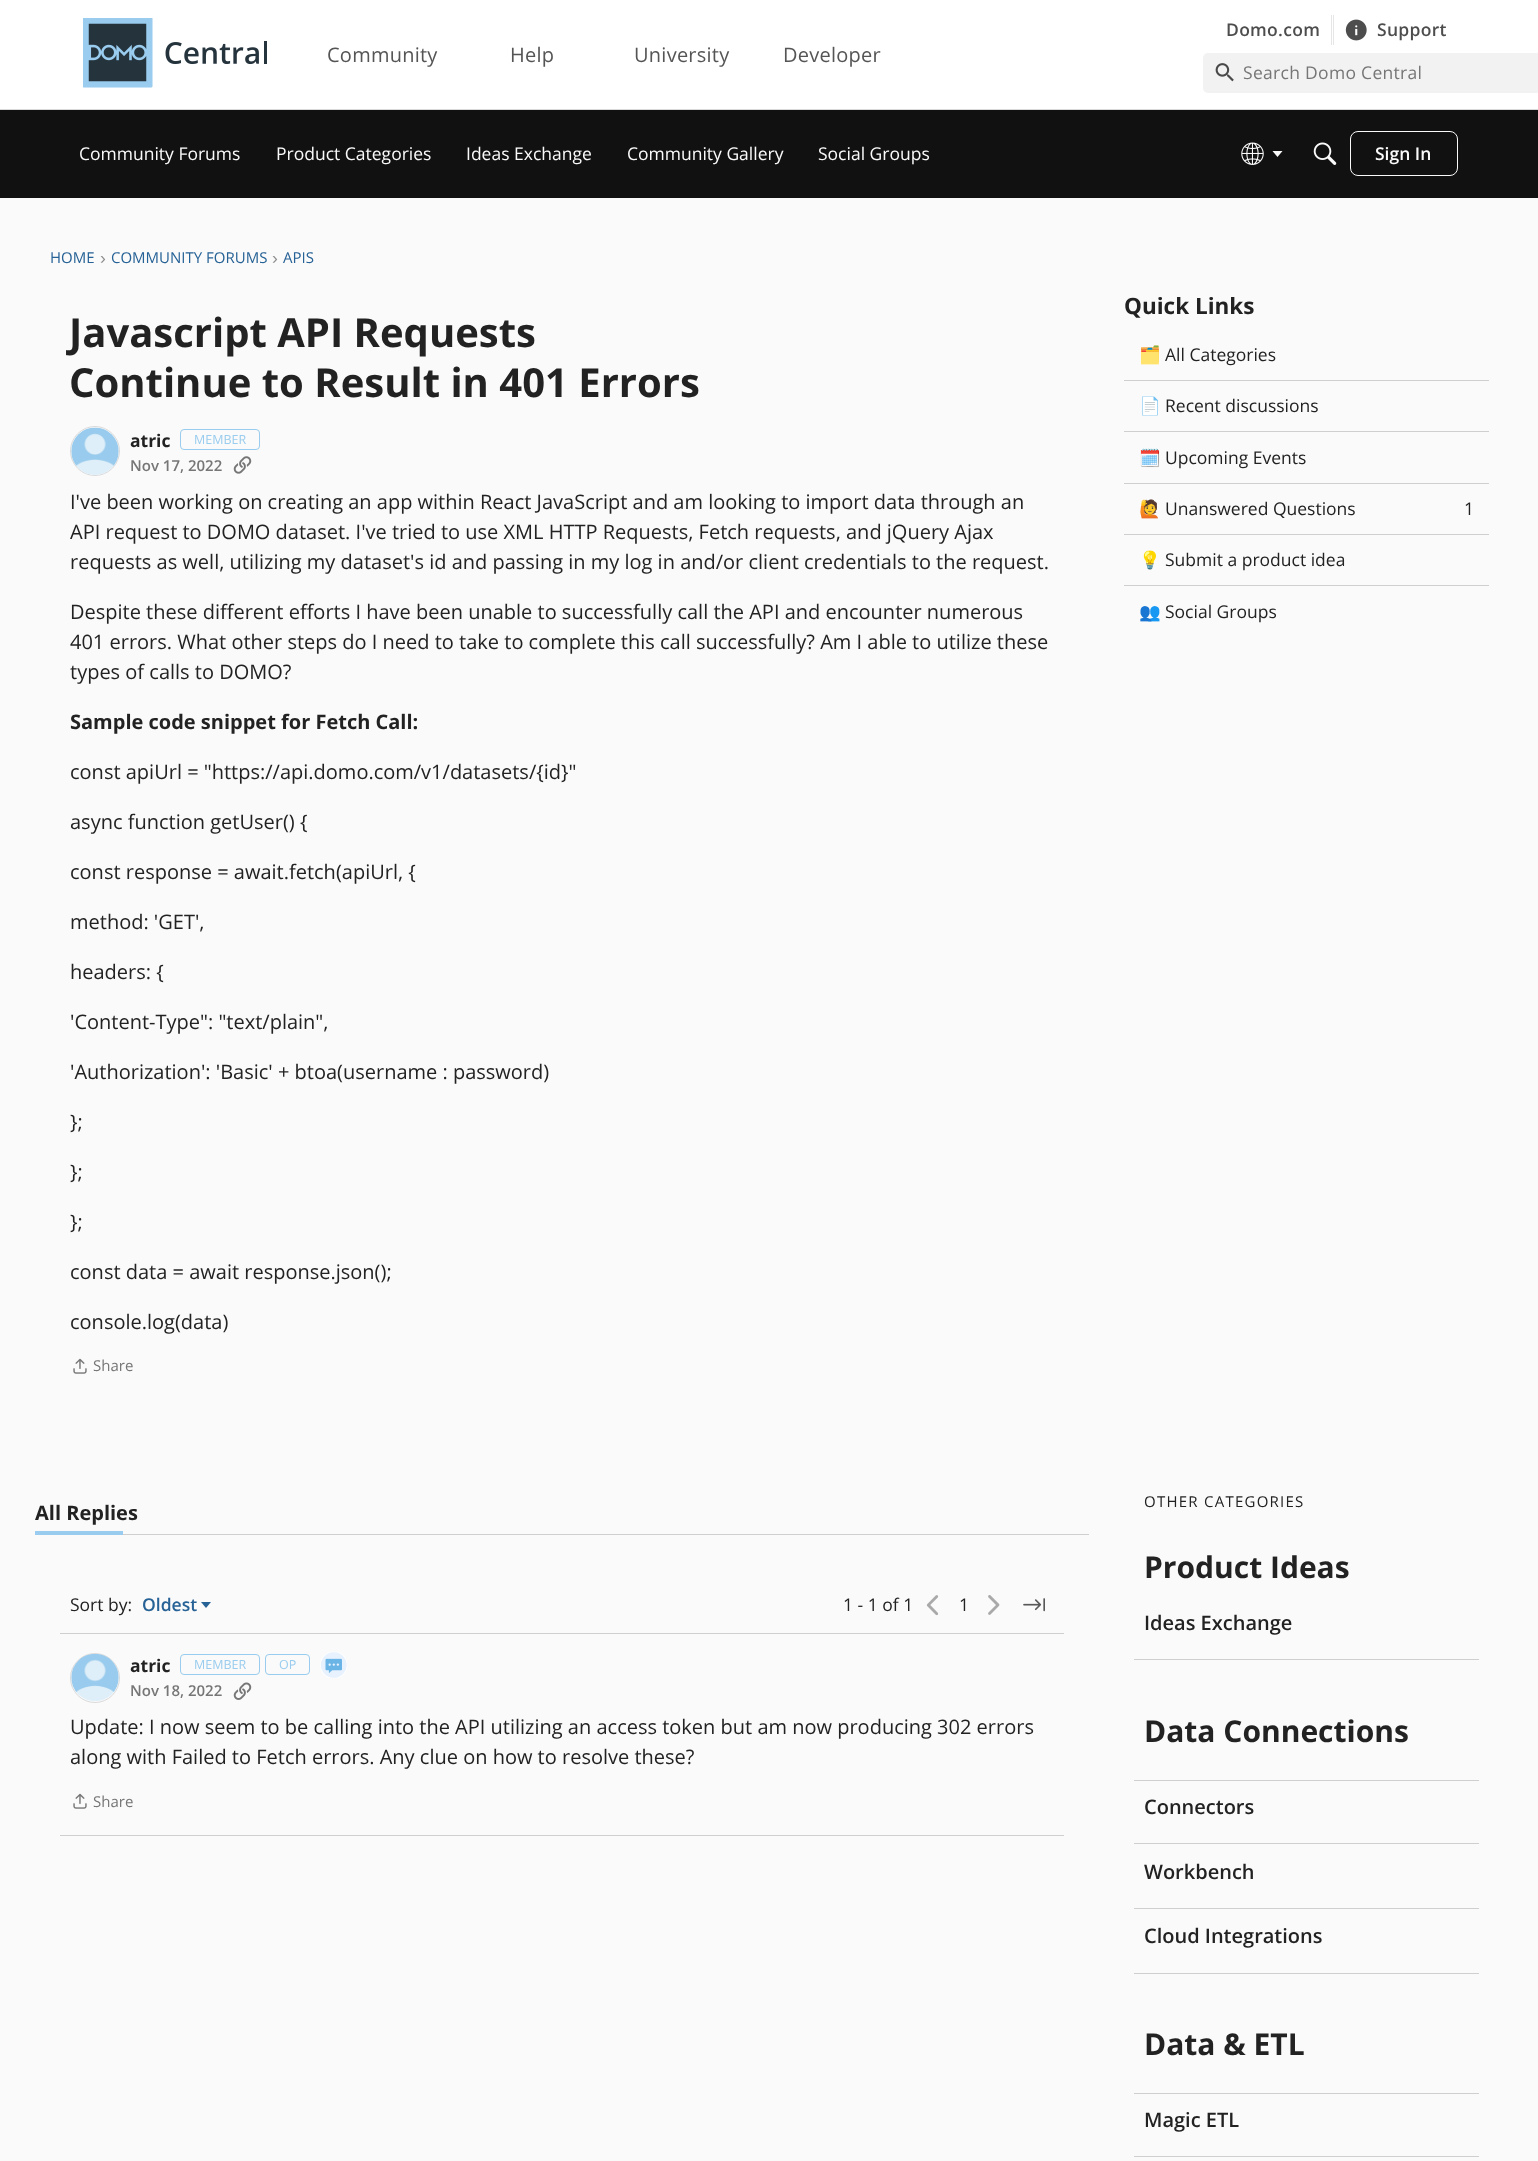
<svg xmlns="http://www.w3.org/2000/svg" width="1538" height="2161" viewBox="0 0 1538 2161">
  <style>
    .t1 { font: 600 17.5px Open Sans; letter-spacing: 0.3px; fill: #4d4d4d; }
    .t2 { font: 20px Open Sans; letter-spacing: 0.25px; fill: #555; }
    .t3 { font: 17.5px Open Sans; letter-spacing: 0.3px; fill: #767676; }
    .t4 { font: 17.5px Open Sans; fill: #fafafa; }
    .t5 { font: 600 17.5px Open Sans; fill: #fafafa; }
    .t6 { font: 15px Open Sans; fill: #276296; }
    .t7 { font: 17.5px Liberation Sans; fill: #8e8e8e; }
    .t8 { font: bold 40px Open Sans; fill: #222; }
    .t9 { font: bold 17.5px Open Sans; fill: #222; }
    .t10 { font: 12.5px Open Sans; fill: #9ce; }
    .t11 { font: 600 15px Open Sans; fill: #767676; }
    .t12 { font: 20px Open Sans; fill: #222; }
    .t13 { font: bold 20px Open Sans; fill: #222; }
    .t14 { font: 15px Open Sans; fill: #767676; }
    .t15 { font: bold 22.5px Open Sans; fill: #222; }
    .t16 { font: 17.5px Noto Color Emoji; fill: #222; }
    .t17 { font: 17.5px Open Sans; fill: #222; }
    .t18 { font: 600 17.5px Open Sans; fill: #276296; }
    .t19 { font: 15px Open Sans; letter-spacing: 1.25px; fill: #222; }
    .t20 { font: bold 30px Open Sans; fill: #222; }
    .t21 { font: 600 20px Open Sans; fill: #222; }
  </style>
  <rect width="100%" height="100%" fill="#fafafa"/>
  <rect x="0" y="0" width="1538" height="109" fill="#fff"/>
  <rect x="0" y="109" width="1538" height="1" fill="#d9d9d9"/>
  <image x="83" y="18" width="184" height="70" href="images/1.png"/>
  <text x="1226" y="36" class="t1">Domo.com</text>
  <rect x="1331" y="15" width="1" height="30" fill="#e6e6e6"/>
  <rect x="1333" y="15" width="1" height="30" fill="#e6e6e6"/>
  <image x="1345" y="19" width="22" height="22" href="images/2.png"/>
  <text x="1377" y="36" class="t1">Support</text>
  <text x="327" y="62" class="t2">Community</text>
  <text x="510" y="62" class="t2">Help</text>
  <text x="634" y="62" class="t2">University</text>
  <text x="783" y="62" class="t2">Developer</text>
  <rect x="1203" y="53" width="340" height="40" rx="5" fill="#f2f2f2"/>
  <image x="1215" y="63" width="19" height="19" href="images/3.png"/>
  <text x="1243" y="79" class="t3">Search Domo Central</text>
  <rect x="0" y="110" width="1538" height="88" fill="#111"/>
  <text x="79" y="160" class="t4">Community Forums</text>
  <text x="276" y="160" class="t4">Product Categories</text>
  <text x="466" y="160" class="t4">Ideas Exchange</text>
  <text x="627" y="160" class="t4">Community Gallery</text>
  <text x="818" y="160" class="t4">Social Groups</text>
  <image x="1241" y="142" width="23" height="23" href="images/4.png"/>
  <path d="M1272.5 151H1282.5L1277.5 157Z" fill="#fafafa"/>
  <image x="1313" y="142" width="24" height="23" href="images/5.png"/>
  <rect x="1350.5" y="131.5" width="107" height="44" rx="7.5" fill="none" stroke="#fafafa"/>
  <text x="1375" y="160" class="t5">Sign In</text>
  <text x="50" y="263" class="t6">HOME</text>
  <text x="100" y="264" class="t7">›</text>
  <text x="111" y="263" class="t6">COMMUNITY FORUMS</text>
  <text x="272" y="264" class="t7">›</text>
  <text x="283" y="263" class="t6">APIS</text>
  <text x="69" y="347" class="t8">Javascript API Requests</text>
  <text x="69" y="397" class="t8">Continue to Result in 401 Errors</text>
  <circle cx="95" cy="451" r="24.5" fill="none" stroke="#dadada"/>
  <image x="71" y="427" width="48" height="48" href="images/6.png"/>
  <text x="130" y="447" class="t9">atric</text>
  <rect x="180.5" y="429.5" width="79" height="20" rx="3.5" fill="none" stroke="#9ce"/>
  <text x="194" y="444" class="t10">MEMBER</text>
  <text x="130" y="471" class="t11">Nov 17, 2022</text>
  <image x="233" y="456" width="19" height="18" href="images/7.png"/>
  <text x="70" y="509" class="t12">I've been working on creating an app within React JavaScript and am looking to import data through an</text>
  <text x="70" y="539" class="t12">API request to DOMO dataset. I've tried to use XML HTTP Requests, Fetch requests, and jQuery Ajax</text>
  <text x="70" y="569" class="t12">requests as well, utilizing my dataset's id and passing in my log in and/or client credentials to the request.</text>
  <text x="70" y="619" class="t12">Despite these different efforts I have been unable to successfully call the API and encounter numerous</text>
  <text x="70" y="649" class="t12">401 errors. What other steps do I need to take to complete this call successfully? Am I able to utilize these</text>
  <text x="70" y="679" class="t12">types of calls to DOMO?</text>
  <text x="70" y="729" class="t13">Sample code snippet for Fetch Call:</text>
  <text x="70" y="779" class="t12">const apiUrl = "https://api.domo.com/v1/datasets/{id}"</text>
  <text x="70" y="829" class="t12">async function getUser() {</text>
  <text x="70" y="879" class="t12">const response = await.fetch(apiUrl, {</text>
  <text x="70" y="929" class="t12">method: 'GET',</text>
  <text x="70" y="979" class="t12">headers: {</text>
  <text x="70" y="1029" class="t12">'Content-Type": "text/plain",</text>
  <text x="70" y="1079" class="t12">'Authorization': 'Basic' + btoa(username : password)</text>
  <text x="70" y="1129" class="t12">};</text>
  <text x="70" y="1179" class="t12">};</text>
  <text x="70" y="1229" class="t12">};</text>
  <text x="70" y="1279" class="t12">const data = await response.json();</text>
  <text x="70" y="1329" class="t12">console.log(data)</text>
  <image x="73" y="1358" width="14" height="16" href="images/8.png"/>
  <text x="93" y="1371" class="t14">Share</text>
  <text x="1124" y="314" class="t15">Quick Links</text>
  <rect x="1124" y="380" width="365" height="1" fill="#cfcfcf"/>
  <text x="1139" y="361" class="t16">🗂️</text>
  <text x="1165" y="361" class="t17">All Categories</text>
  <rect x="1124" y="431" width="365" height="1" fill="#cfcfcf"/>
  <text x="1139" y="412" class="t16">📄</text>
  <text x="1165" y="412" class="t17">Recent discussions</text>
  <rect x="1124" y="483" width="365" height="1" fill="#cfcfcf"/>
  <text x="1139" y="464" class="t16">🗓️</text>
  <text x="1165" y="464" class="t17">Upcoming Events</text>
  <rect x="1124" y="534" width="365" height="1" fill="#cfcfcf"/>
  <text x="1139" y="515" class="t16">🙋</text>
  <text x="1165" y="515" class="t17">Unanswered Questions</text>
  <text x="1464" y="515" class="t17">1</text>
  <rect x="1124" y="585" width="365" height="1" fill="#cfcfcf"/>
  <text x="1139" y="566" class="t16">💡</text>
  <text x="1165" y="566" class="t17">Submit a product idea</text>
  <text x="1139" y="618" class="t16">👥</text>
  <text x="1165" y="618" class="t17">Social Groups</text>
  <rect x="123" y="1534" width="966" height="1" fill="#cfcfcf"/>
  <text x="35" y="1520" class="t13">All Replies</text>
  <rect x="35" y="1531" width="88" height="4" fill="#9ce"/>
  <text x="70" y="1611" class="t17">Sort by:</text>
  <text x="142" y="1611" class="t18">Oldest</text>
  <path d="M201 1602H211L206 1608Z" fill="#276296"/>
  <text x="843" y="1611" class="t17">1 - 1 of 1</text>
  <image x="926" y="1595" width="13" height="21" href="images/9.png"/>
  <text x="959" y="1611" class="t17">1</text>
  <image x="988" y="1595" width="12" height="20" href="images/10.png"/>
  <image x="1023" y="1598" width="22" height="14" href="images/11.png"/>
  <rect x="60" y="1633" width="1004" height="1" fill="#cfcfcf"/>
  <circle cx="95" cy="1678" r="24.5" fill="none" stroke="#dadada"/>
  <image x="71" y="1654" width="48" height="47" href="images/12.png"/>
  <text x="130" y="1672" class="t9">atric</text>
  <rect x="180.5" y="1654.5" width="79" height="20" rx="3.5" fill="none" stroke="#9ce"/>
  <text x="194" y="1669" class="t10">MEMBER</text>
  <rect x="265.5" y="1654.5" width="44" height="20" rx="3.5" fill="none" stroke="#9ce"/>
  <text x="279" y="1669" class="t10">OP</text>
  <image x="320" y="1652" width="27" height="26" href="images/13.png"/>
  <text x="130" y="1696" class="t11">Nov 18, 2022</text>
  <image x="233" y="1682" width="19" height="18" href="images/14.png"/>
  <text x="70" y="1734" class="t12">Update: I now seem to be calling into the API utilizing an access token but am now producing 302 errors</text>
  <text x="70" y="1764" class="t12">along with Failed to Fetch errors. Any clue on how to resolve these?</text>
  <image x="73" y="1793" width="14" height="16" href="images/8.png"/>
  <text x="93" y="1807" class="t14">Share</text>
  <rect x="60" y="1835" width="1004" height="1" fill="#cfcfcf"/>
  <text x="1144" y="1507" class="t19">OTHER CATEGORIES</text>
  <text x="1144" y="1578" class="t20">Product Ideas</text>
  <text x="1144" y="1630" class="t21">Ideas Exchange</text>
  <rect x="1134" y="1659" width="345" height="1" fill="#cfcfcf"/>
  <text x="1144" y="1742" class="t20">Data Connections</text>
  <rect x="1134" y="1780" width="345" height="1" fill="#cfcfcf"/>
  <text x="1144" y="1814" class="t21">Connectors</text>
  <rect x="1134" y="1843" width="345" height="1" fill="#cfcfcf"/>
  <text x="1144" y="1879" class="t21">Workbench</text>
  <rect x="1134" y="1908" width="345" height="1" fill="#cfcfcf"/>
  <text x="1144" y="1943" class="t21">Cloud Integrations</text>
  <rect x="1134" y="1973" width="345" height="1" fill="#cfcfcf"/>
  <text x="1144" y="2055" class="t20">Data &amp; ETL</text>
  <rect x="1134" y="2093" width="345" height="1" fill="#cfcfcf"/>
  <text x="1144" y="2127" class="t21">Magic ETL</text>
  <rect x="1134" y="2156" width="345" height="1" fill="#cfcfcf"/>
</svg>
